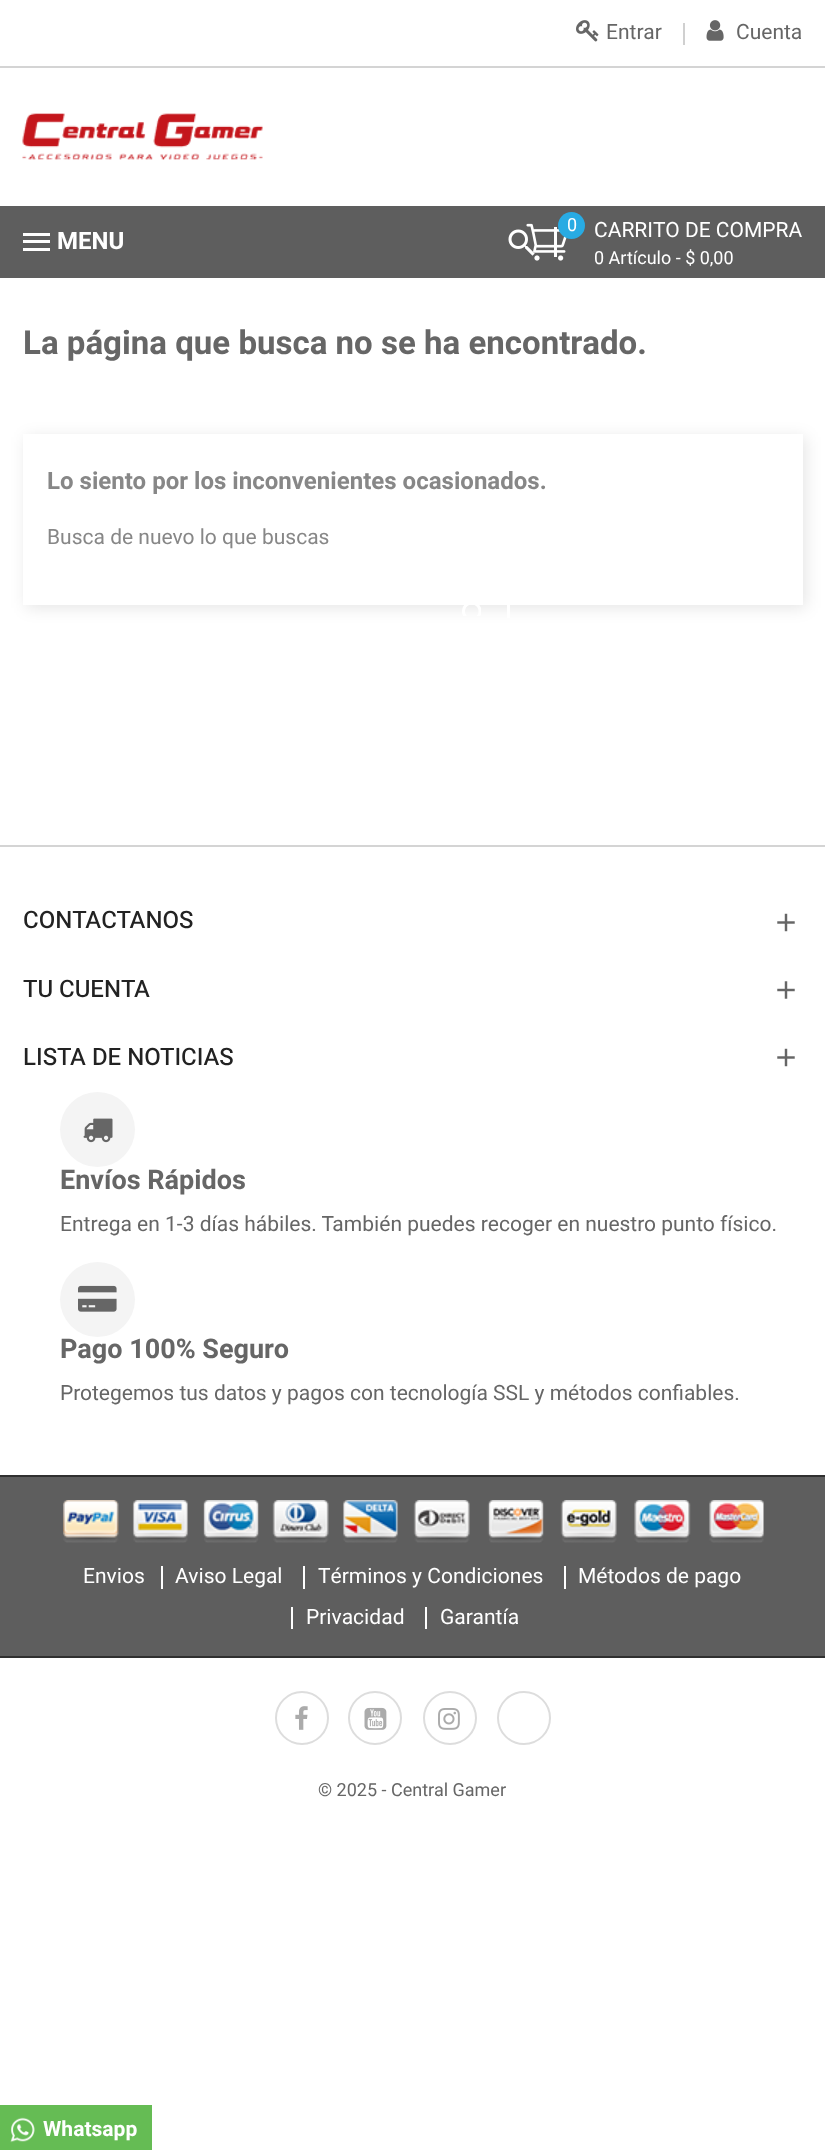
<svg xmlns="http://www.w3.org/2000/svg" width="825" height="2156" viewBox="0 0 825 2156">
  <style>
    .t1 { font: 21px Heebo; fill: #666; }
    .t2 { font: bold 24px Heebo; fill: #fff; }
    .t3 { font: 18px Heebo; fill: #fff; }
    .t4 { font: 21px Heebo; fill: #fff; }
    .t5 { font: bold 33px Heebo; fill: #666; }
    .t6 { font: bold 24px Heebo; fill: #878787; }
    .t7 { font: 21px Heebo; fill: #878787; }
    .t8 { font: 500 24px Heebo; fill: #222; }
    .t9 { font: bold 27px Heebo; fill: #666; }
    .t10 { font: bold 21px Heebo; fill: #fff; }
    .t11 { font: 18px Heebo; fill: #666; }
  </style>
  <rect width="100%" height="100%" fill="#fff"/>
  <rect x="0" y="66" width="825" height="2" fill="#d4d4d4"/>
  <image x="576" y="20" width="23" height="22" href="images/1.png"/>
  <text x="606" y="39" class="t1">Entrar</text>
  <rect x="683" y="23" width="2" height="22" fill="#d0d0d0"/>
  <image x="706" y="20" width="18" height="21" href="images/2.png"/>
  <text x="736" y="39" class="t1">Cuenta</text>
  <rect x="0" y="206" width="825" height="72" fill="#5e5e5e"/>
  <rect x="23" y="233" width="27" height="3" fill="#fff"/>
  <rect x="23" y="240" width="27" height="3" fill="#fff"/>
  <rect x="23" y="248" width="27" height="3" fill="#fff"/>
  <text x="57" y="249" class="t2">MENU</text>
  <image x="22" y="113" width="241" height="47" href="images/3.png"/>
  <image x="508" y="229" width="27" height="27" href="images/4.png"/>
  <rect x="554" y="227" width="3" height="30" fill="#fff"/>
  <image x="526" y="223" width="41" height="38" href="images/5.png"/>
  <circle cx="571.5" cy="225.5" r="13.5" fill="#28abe3"/>
  <text x="567" y="231" class="t3">0</text>
  <text x="594" y="237" class="t4">CARRITO DE COMPRA</text>
  <text x="594" y="264" class="t3">0 Artículo - $ 0,00</text>
  <text x="23" y="354" class="t5">La página que busca no se ha encontrado.</text>
  <rect x="26" y="437" width="780" height="171" fill="#0000001a" filter="blur(8px)"/>
  <rect x="23" y="434" width="780" height="171" fill="#fff"/>
  <text x="47" y="489" class="t6">Lo siento por los inconvenientes ocasionados.</text>
  <text x="47" y="544" class="t7">Busca de nuevo lo que buscas</text>
  <image x="462" y="605" width="19" height="11" href="images/6.png"/>
  <rect x="507" y="600" width="3" height="18" fill="#fff"/>
  <rect x="0" y="845" width="825" height="2" fill="#d4d4d4"/>
  <text x="23" y="928" class="t8">CONTACTANOS</text>
  <image x="777" y="913" width="18" height="19" href="images/7.png"/>
  <text x="23" y="997" class="t8">TU CUENTA</text>
  <image x="777" y="981" width="18" height="18" href="images/8.png"/>
  <text x="23" y="1065" class="t8">LISTA DE NOTICIAS</text>
  <image x="777" y="1048" width="18" height="19" href="images/7.png"/>
  <circle cx="97.5" cy="1129.5" r="37.5" fill="#f4f4f4"/>
  <image x="83" y="1118" width="30" height="25" href="images/9.png"/>
  <text x="60" y="1189" class="t9">Envíos Rápidos</text>
  <text x="60" y="1231" class="t1">Entrega en 1-3 días hábiles. También puedes recoger en nuestro punto físico.</text>
  <circle cx="97.5" cy="1299.5" r="37.5" fill="#f4f4f4"/>
  <image x="78" y="1285" width="39" height="27" href="images/10.png"/>
  <text x="60" y="1358" class="t9">Pago 100% Seguro</text>
  <text x="60" y="1400" class="t1">Protegemos tus datos y pagos con tecnología SSL y métodos confiables.</text>
  <rect x="0" y="2105" width="152" height="45" fill="#65bc54"/>
  <image x="10" y="2117" width="25" height="26" href="images/11.png"/>
  <text x="43" y="2136" class="t10">Whatsapp</text>
  <rect x="0" y="1477" width="825" height="179" fill="#5e5e5e"/>
  <rect x="0" y="1475" width="825" height="2" fill="#303030"/>
  <rect x="0" y="1656" width="825" height="2" fill="#303030"/>
  <image x="63" y="1500" width="701" height="43" href="images/12.png"/>
  <text x="83" y="1583" class="t4">Envios</text>
  <rect x="161" y="1566" width="2" height="23" fill="#fff"/>
  <text x="175" y="1583" class="t4">Aviso Legal</text>
  <rect x="303" y="1566" width="2" height="23" fill="#fff"/>
  <text x="318" y="1583" class="t4">Términos y Condiciones</text>
  <rect x="564" y="1566" width="2" height="23" fill="#fff"/>
  <text x="578" y="1583" class="t4">Métodos de pago</text>
  <rect x="291" y="1607" width="2" height="22" fill="#fff"/>
  <text x="306" y="1624" class="t4">Privacidad</text>
  <rect x="425" y="1607" width="2" height="22" fill="#fff"/>
  <text x="440" y="1624" class="t4">Garantía</text>
  <circle cx="302" cy="1718" r="26" fill="none" stroke="#ddd" stroke-width="2"/>
  <image x="295" y="1706" width="13" height="24" href="images/13.png"/>
  <circle cx="375" cy="1718" r="26" fill="none" stroke="#ddd" stroke-width="2"/>
  <image x="364" y="1707" width="23" height="23" href="images/14.png"/>
  <circle cx="450" cy="1718" r="26" fill="none" stroke="#ddd" stroke-width="2"/>
  <image x="438" y="1708" width="22" height="22" href="images/15.png"/>
  <circle cx="524" cy="1718" r="26" fill="none" stroke="#ddd" stroke-width="2"/>
  <text x="318" y="1796" class="t11">© 2025 - Central Gamer</text>
</svg>
